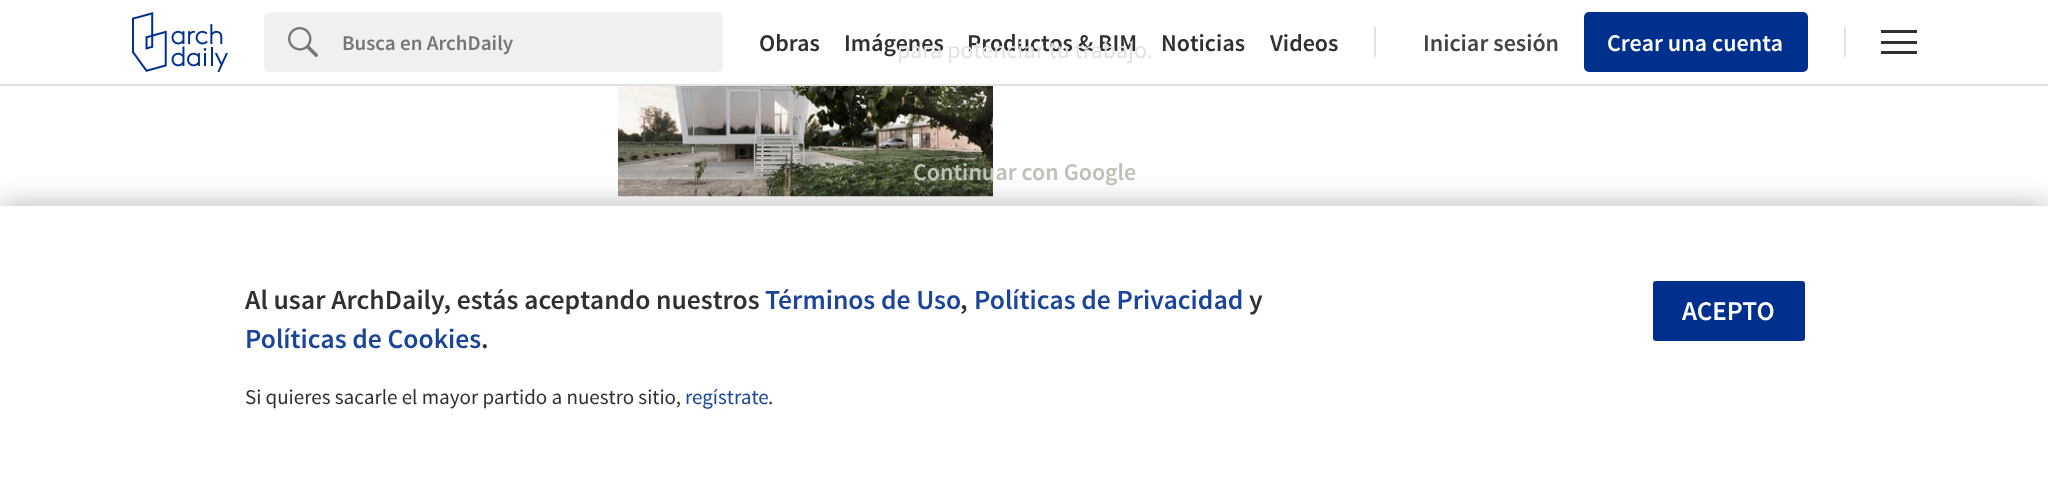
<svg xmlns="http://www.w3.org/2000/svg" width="2048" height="481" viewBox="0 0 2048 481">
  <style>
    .t1 { font: 600 21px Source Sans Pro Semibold; fill: #767676; }
    .t2 { font: 600 24px Source Sans Pro Semibold; fill: #303030; }
    .t3 { font: 600 24px Source Sans Pro Semibold; fill: #444; }
    .t4 { font: 600 24px Source Sans Pro Semibold; fill: #fff; }
    .t5 { font: 24px Source Sans Pro; fill: #e2e2e2; }
    .t6 { font: 600 24px Source Sans Pro Semibold; fill: #bec1b7; }
    .t7 { font: 600 27.6px Source Sans Pro Semibold; fill: #303030; }
    .t8 { font: 600 27.6px Source Sans Pro Semibold; fill: #1a4599; }
    .t9 { font: 21px Source Sans Pro; fill: #303030; }
    .t10 { font: 21px Source Sans Pro; fill: #1a4599; }
    .t11 { font: 600 27px Source Sans Pro Semibold; fill: #fff; }
  </style>
  <rect width="100%" height="100%" fill="#fff"/>
  <rect x="0" y="84" width="2048" height="2" fill="#e1e1e1"/>
  <image x="132" y="12" width="96" height="60" href="images/1.png"/>
  <rect x="264" y="12" width="459" height="60" rx="6" fill="#f0f0f0"/>
  <image x="288" y="27" width="30" height="30" href="images/2.png"/>
  <text x="342" y="50" class="t1">Busca en ArchDaily</text>
  <text x="759" y="51" class="t2">Obras</text>
  <text x="844" y="51" class="t2">Imágenes</text>
  <text x="967" y="51" class="t2">Productos &amp; BIM</text>
  <text x="1161" y="51" class="t2">Noticias</text>
  <text x="1270" y="51" class="t2">Videos</text>
  <rect x="1374" y="27" width="2" height="30" fill="#e1e1e1"/>
  <text x="1423" y="51" class="t3">Iniciar sesión</text>
  <rect x="1584" y="12" width="224" height="60" rx="5" fill="#00308e"/>
  <text x="1607" y="51" class="t4">Crear una cuenta</text>
  <rect x="1844" y="27" width="2" height="30" fill="#e1e1e1"/>
  <rect x="1881" y="41" width="36" height="3" fill="#303030"/>
  <rect x="1881" y="30" width="36" height="3" fill="#303030"/>
  <rect x="1881" y="51" width="36" height="3" fill="#303030"/>
  <image x="618" y="86" width="375" height="111" href="images/3.png"/>
  <rect x="0" y="206" width="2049" height="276" fill="#00000026" filter="blur(15px)"/>
  <text x="897" y="58" class="t5">para potenciar tu trabajo.</text>
  <rect x="0" y="206" width="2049" height="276" fill="#00000026" filter="blur(15px)"/>
  <text x="913" y="180" class="t6">Continuar con Google</text>
  <rect x="0" y="206" width="2048" height="275" fill="#fff"/>
  <text x="245" y="309" class="t7">Al usar ArchDaily, estás aceptando nuestros</text>
  <text x="765" y="309" class="t8">Términos de Uso</text>
  <text x="960" y="309" class="t7">,</text>
  <text x="974" y="309" class="t8">Políticas de Privacidad</text>
  <text x="1249" y="309" class="t7">y</text>
  <text x="245" y="348" class="t8">Políticas de Cookies</text>
  <text x="481" y="348" class="t7">.</text>
  <text x="245" y="404" class="t9">Si quieres sacarle el mayor partido a nuestro sitio,</text>
  <text x="685" y="404" class="t10">regístrate</text>
  <text x="768" y="404" class="t9">.</text>
  <rect x="1653" y="281" width="152" height="60" rx="3" fill="#00308e"/>
  <text x="1682" y="320" class="t11">ACEPTO</text>
</svg>
